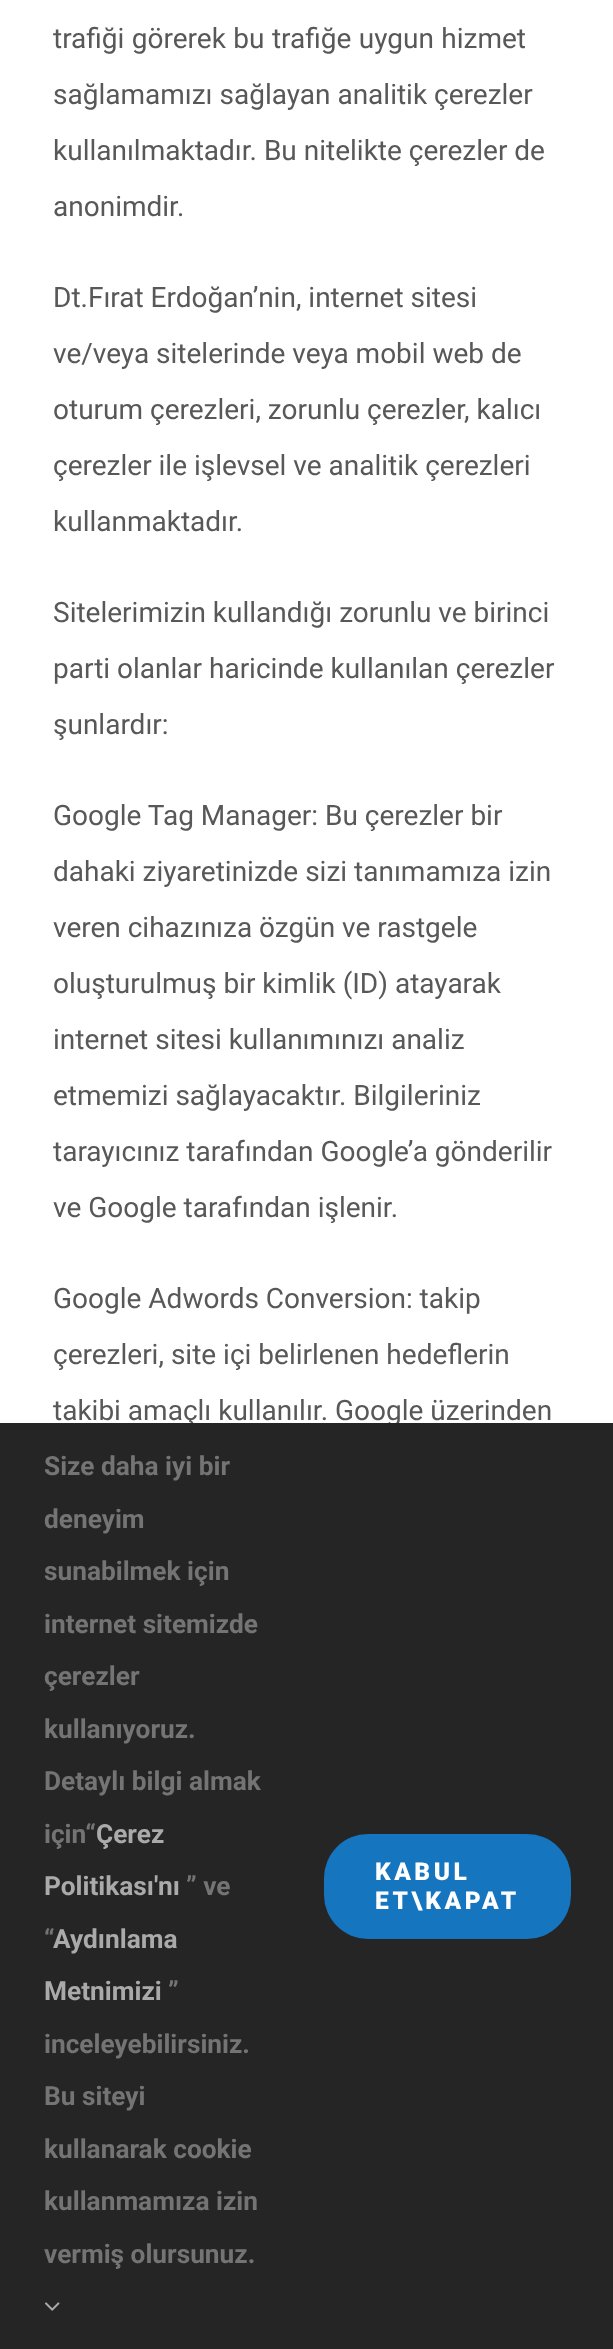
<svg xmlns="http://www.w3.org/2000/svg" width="613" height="2349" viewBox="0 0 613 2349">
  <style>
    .t1 { font: 28px Roboto; fill: #585858; }
    .t2 { font: bold 26.25px Roboto; fill: #747474; }
    .t3 { font: bold 26.25px Roboto; fill: #aaa; }
    .t4 { font: 900 24.5px Roboto; letter-spacing: 3.5px; fill: #fff; }
  </style>
  <rect width="100%" height="100%" fill="#fff"/>
  <text x="53" y="48" word-spacing="0.5" class="t1">trafiği görerek bu trafiğe uygun hizmet</text>
  <text x="53" y="104" class="t1">sağlamamızı sağlayan analitik çerezler</text>
  <text x="53" y="160" class="t1">kullanılmaktadır. Bu nitelikte çerezler de</text>
  <text x="53" y="216" class="t1">anonimdir.</text>
  <text x="53" y="307" class="t1">Dt.Fırat Erdoğan’nin, internet sitesi</text>
  <text x="53" y="363" class="t1">ve/veya sitelerinde veya mobil web de</text>
  <text x="53" y="419" class="t1">oturum çerezleri, zorunlu çerezler, kalıcı</text>
  <text x="53" y="475" class="t1">çerezler ile işlevsel ve analitik çerezleri</text>
  <text x="53" y="531" class="t1">kullanmaktadır.</text>
  <text x="53" y="622" class="t1">Sitelerimizin kullandığı zorunlu ve birinci</text>
  <text x="53" y="678" class="t1">parti olanlar haricinde kullanılan çerezler</text>
  <text x="53" y="734" class="t1">şunlardır:</text>
  <text x="53" y="825" class="t1">Google Tag Manager: Bu çerezler bir</text>
  <text x="53" y="881" class="t1">dahaki ziyaretinizde sizi tanımamıza izin</text>
  <text x="53" y="937" class="t1">veren cihazınıza özgün ve rastgele</text>
  <text x="53" y="993" class="t1">oluşturulmuş bir kimlik (ID) atayarak</text>
  <text x="53" y="1049" class="t1">internet sitesi kullanımınızı analiz</text>
  <text x="53" y="1105" class="t1">etmemizi sağlayacaktır. Bilgileriniz</text>
  <text x="53" y="1161" class="t1">tarayıcınız tarafından Google’a gönderilir</text>
  <text x="53" y="1217" class="t1">ve Google tarafından işlenir.</text>
  <text x="53" y="1308" class="t1">Google Adwords Conversion: takip</text>
  <text x="53" y="1364" class="t1">çerezleri, site içi belirlenen hedeflerin</text>
  <text x="53" y="1420" class="t1">takibi amaçlı kullanılır. Google üzerinden</text>
  <rect x="0" y="1423" width="613" height="926" fill="#252525"/>
  <text x="44" y="1475" class="t2">Size daha iyi bir</text>
  <text x="44" y="1528" class="t2">deneyim</text>
  <text x="44" y="1580" class="t2">sunabilmek için</text>
  <text x="44" y="1633" class="t2">internet sitemizde</text>
  <text x="44" y="1685" class="t2">çerezler</text>
  <text x="44" y="1738" class="t2">kullanıyoruz.</text>
  <text x="44" y="1790" class="t2">Detaylı bilgi almak</text>
  <text x="44" y="1843" class="t2">için“</text>
  <text x="96" y="1843" class="t3">Çerez</text>
  <text x="44" y="1895" class="t3">Politikası'nı</text>
  <text x="186" y="1895" class="t2">” ve</text>
  <text x="44" y="1948" class="t2">“</text>
  <text x="53" y="1948" class="t3">Aydınlama</text>
  <text x="44" y="2000" class="t3">Metnimizi</text>
  <text x="168" y="2000" class="t2">”</text>
  <text x="44" y="2053" class="t2">inceleyebilirsiniz.</text>
  <text x="44" y="2105" class="t2">Bu siteyi</text>
  <text x="44" y="2158" class="t2">kullanarak cookie</text>
  <text x="44" y="2210" class="t2">kullanmamıza izin</text>
  <text x="44" y="2263" class="t2">vermiş olursunuz.</text>
  <image x="44" y="2302" width="16" height="9" href="images/1.png"/>
  <rect x="324" y="1834" width="247" height="105" rx="44" fill="#1675bf"/>
  <text x="375" y="1880" class="t4">KABUL</text>
  <text x="375" y="1909" class="t4">ET\KAPAT</text>
</svg>
